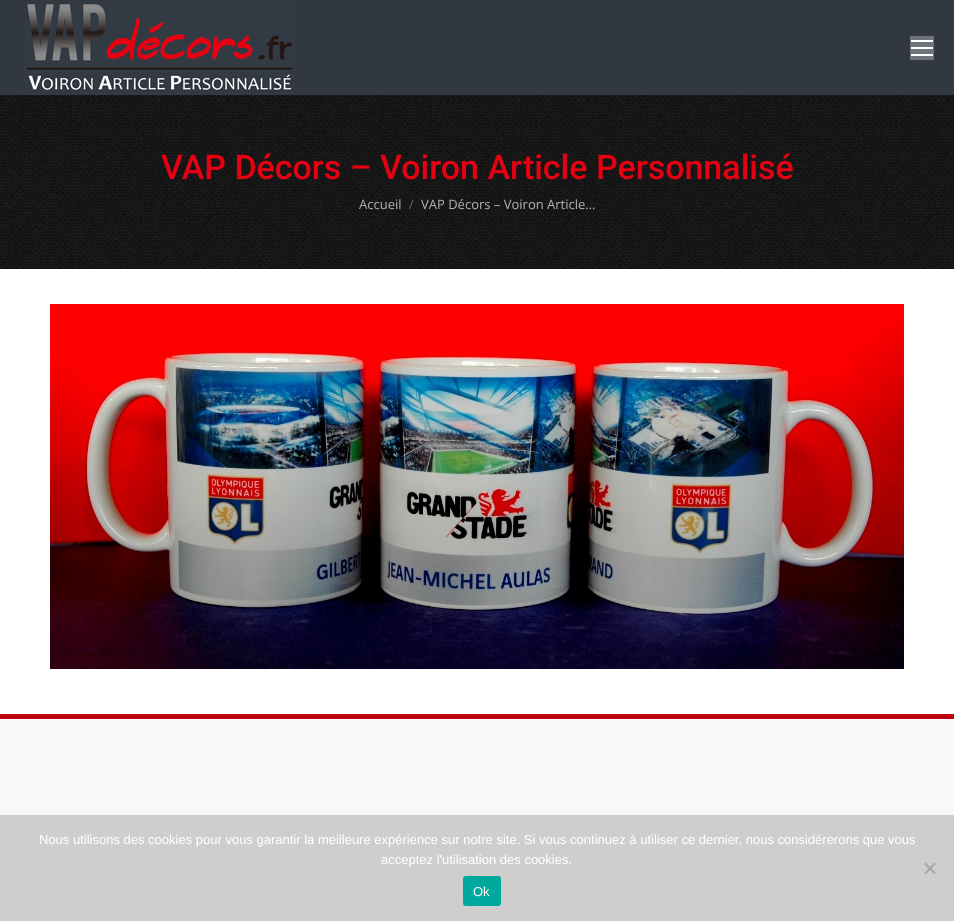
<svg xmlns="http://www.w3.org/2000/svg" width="954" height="921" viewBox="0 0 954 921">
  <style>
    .t1 { font: 500 34px Roboto; fill: #e60012; }
    .t2 { font: 13px Open Sans; fill: #adb0b6; }
    .t3 { font: 13px Open Sans; fill: #626366; }
    .t4 { font: 13px Liberation Sans; fill: #fff; }
  </style>
  <rect width="100%" height="100%" fill="#f8f8f9"/>
  <rect x="0" y="269" width="954" height="445" fill="#fff"/>
  <image x="0" y="0" width="954" height="269" href="images/2.png"/>
  <rect x="0" y="0" width="954" height="95" fill="#333a43f5"/>
  <image x="26" y="3" width="270" height="92" href="images/1.png"/>
  <rect x="910" y="36" width="24" height="24" fill="#6f747a"/>
  <rect x="911" y="40" width="22" height="2" fill="#fff"/>
  <rect x="911" y="47" width="22" height="2" fill="#fff"/>
  <rect x="911" y="54" width="22" height="2" fill="#fff"/>
  <text x="161" y="179" class="t1">VAP Décors – Voiron Article Personnalisé</text>
  <text x="359" y="209" class="t2">Accueil</text>
  <text x="409" y="209" class="t3">/</text>
  <text x="421" y="209" class="t2">VAP Décors – Voiron Article…</text>
  <image x="50" y="304" width="854" height="365" href="images/3.png"/>
  <rect x="0" y="714" width="954" height="5" fill="#bf000f"/>
  <rect x="0" y="815" width="954" height="106" fill="#cecece"/>
  <text x="39" y="844" class="t4">Nous utilisons des cookies pour vous garantir la meilleure expérience sur notre site. Si vous continuez à utiliser ce dernier, nous considérerons que vous</text>
  <text x="381" y="864" class="t4">acceptez l'utilisation des cookies.</text>
  <path d="M934.5 862.5L936 864L925.5 874.5L924 873Z" fill="#a7a7a7"/>
  <path d="M924 864L925.5 862.5L936 873L934.5 874.5Z" fill="#a7a7a7"/>
  <rect x="463" y="876" width="38" height="30" rx="3" fill="#00a99d"/>
  <text x="473" y="896" class="t4">Ok</text>
</svg>
